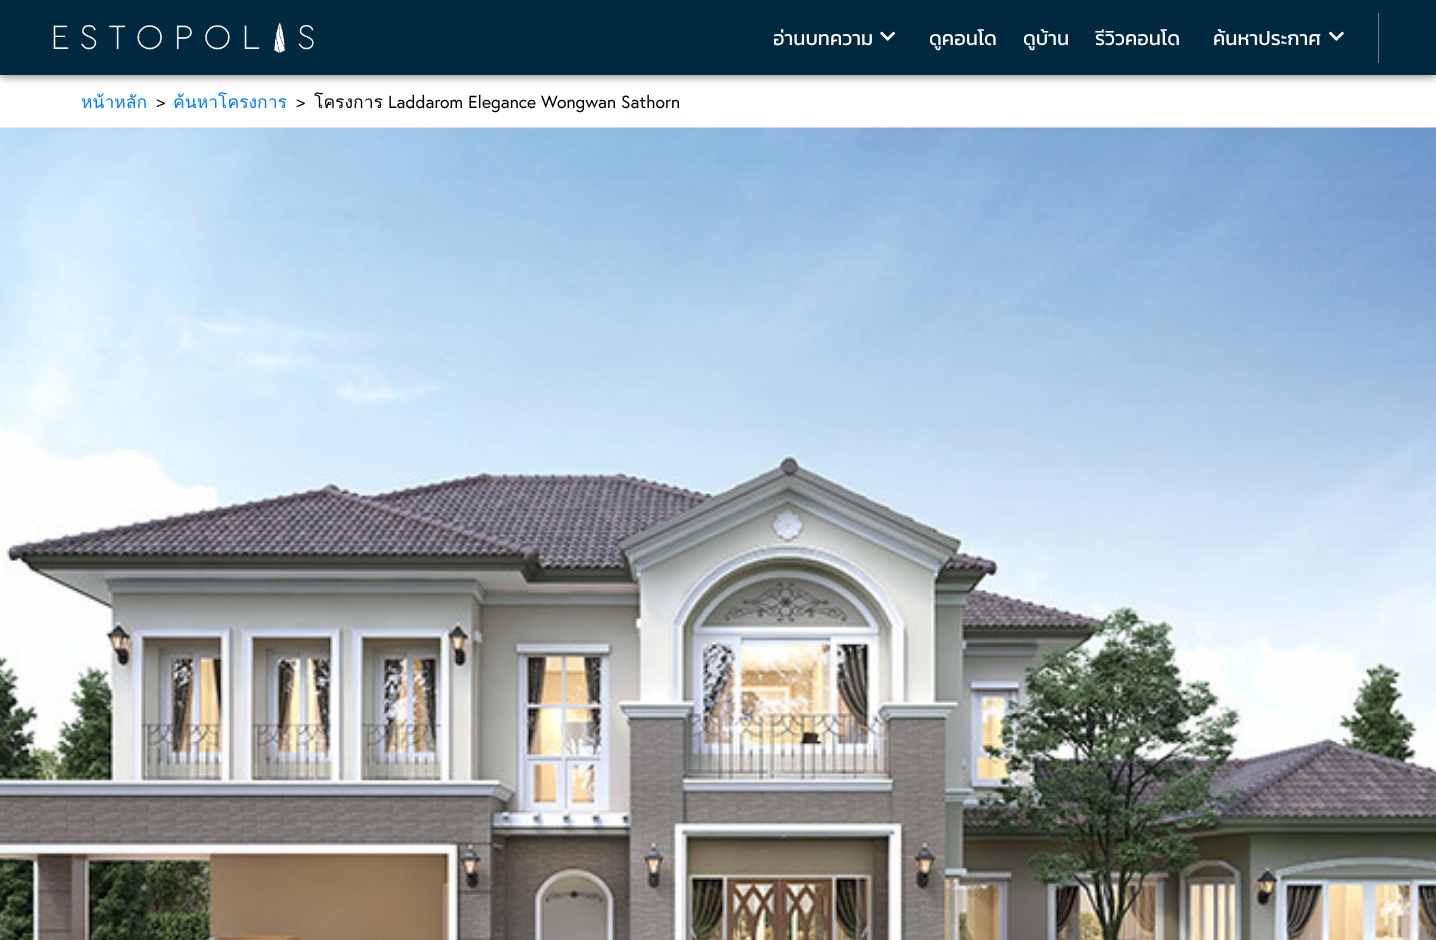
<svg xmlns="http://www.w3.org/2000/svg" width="1436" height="940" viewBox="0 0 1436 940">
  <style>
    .t1 { font: 20px Kanit; fill: #fff; }
    .t2 { font: 17.5px Loma; fill: #007bff; }
    .t3 { font: 17.5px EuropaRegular; fill: #000; }
    .t4 { font: 17.5px Loma; fill: #000; }
  </style>
  <rect width="100%" height="100%" fill="#fff"/>
  <rect x="1" y="4" width="1434" height="72" fill="#00000033" filter="blur(2.5px)"/>
  <rect x="0" y="1" width="1436" height="75" fill="#0000001f" filter="blur(6px)"/>
  <rect x="0" y="5" width="1436" height="75" fill="#00000024" filter="blur(3px)"/>
  <rect x="0" y="0" width="1436" height="75" fill="#002940"/>
  <image x="53" y="22" width="261" height="31" href="images/1.png"/>
  <text x="773" y="45" class="t1">อ่านบทความ</text>
  <image x="880" y="31" width="16" height="10" href="images/2.png"/>
  <text x="929" y="45" class="t1">ดูคอนโด</text>
  <text x="1023" y="45" class="t1">ดูบ้าน</text>
  <text x="1095" y="45" class="t1">รีวิวคอนโด</text>
  <text x="1213" y="45" class="t1">ค้นหาประกาศ</text>
  <image x="1329" y="31" width="15" height="10" href="images/3.png"/>
  <rect x="1378" y="13" width="1" height="50" fill="#667f8c"/>
  <text x="81" y="108" class="t2">หน้าหลัก</text>
  <text x="156" y="108" class="t3">&gt;</text>
  <text x="173" y="108" class="t2">ค้นหาโครงการ</text>
  <text x="296" y="108" class="t3">&gt;</text>
  <text x="314" y="108" class="t4">โครงการ</text>
  <text x="388" y="108" class="t3">Laddarom Elegance Wongwan Sathorn</text>
  <image x="0" y="127" width="1436" height="813" href="images/4.png"/>
</svg>
